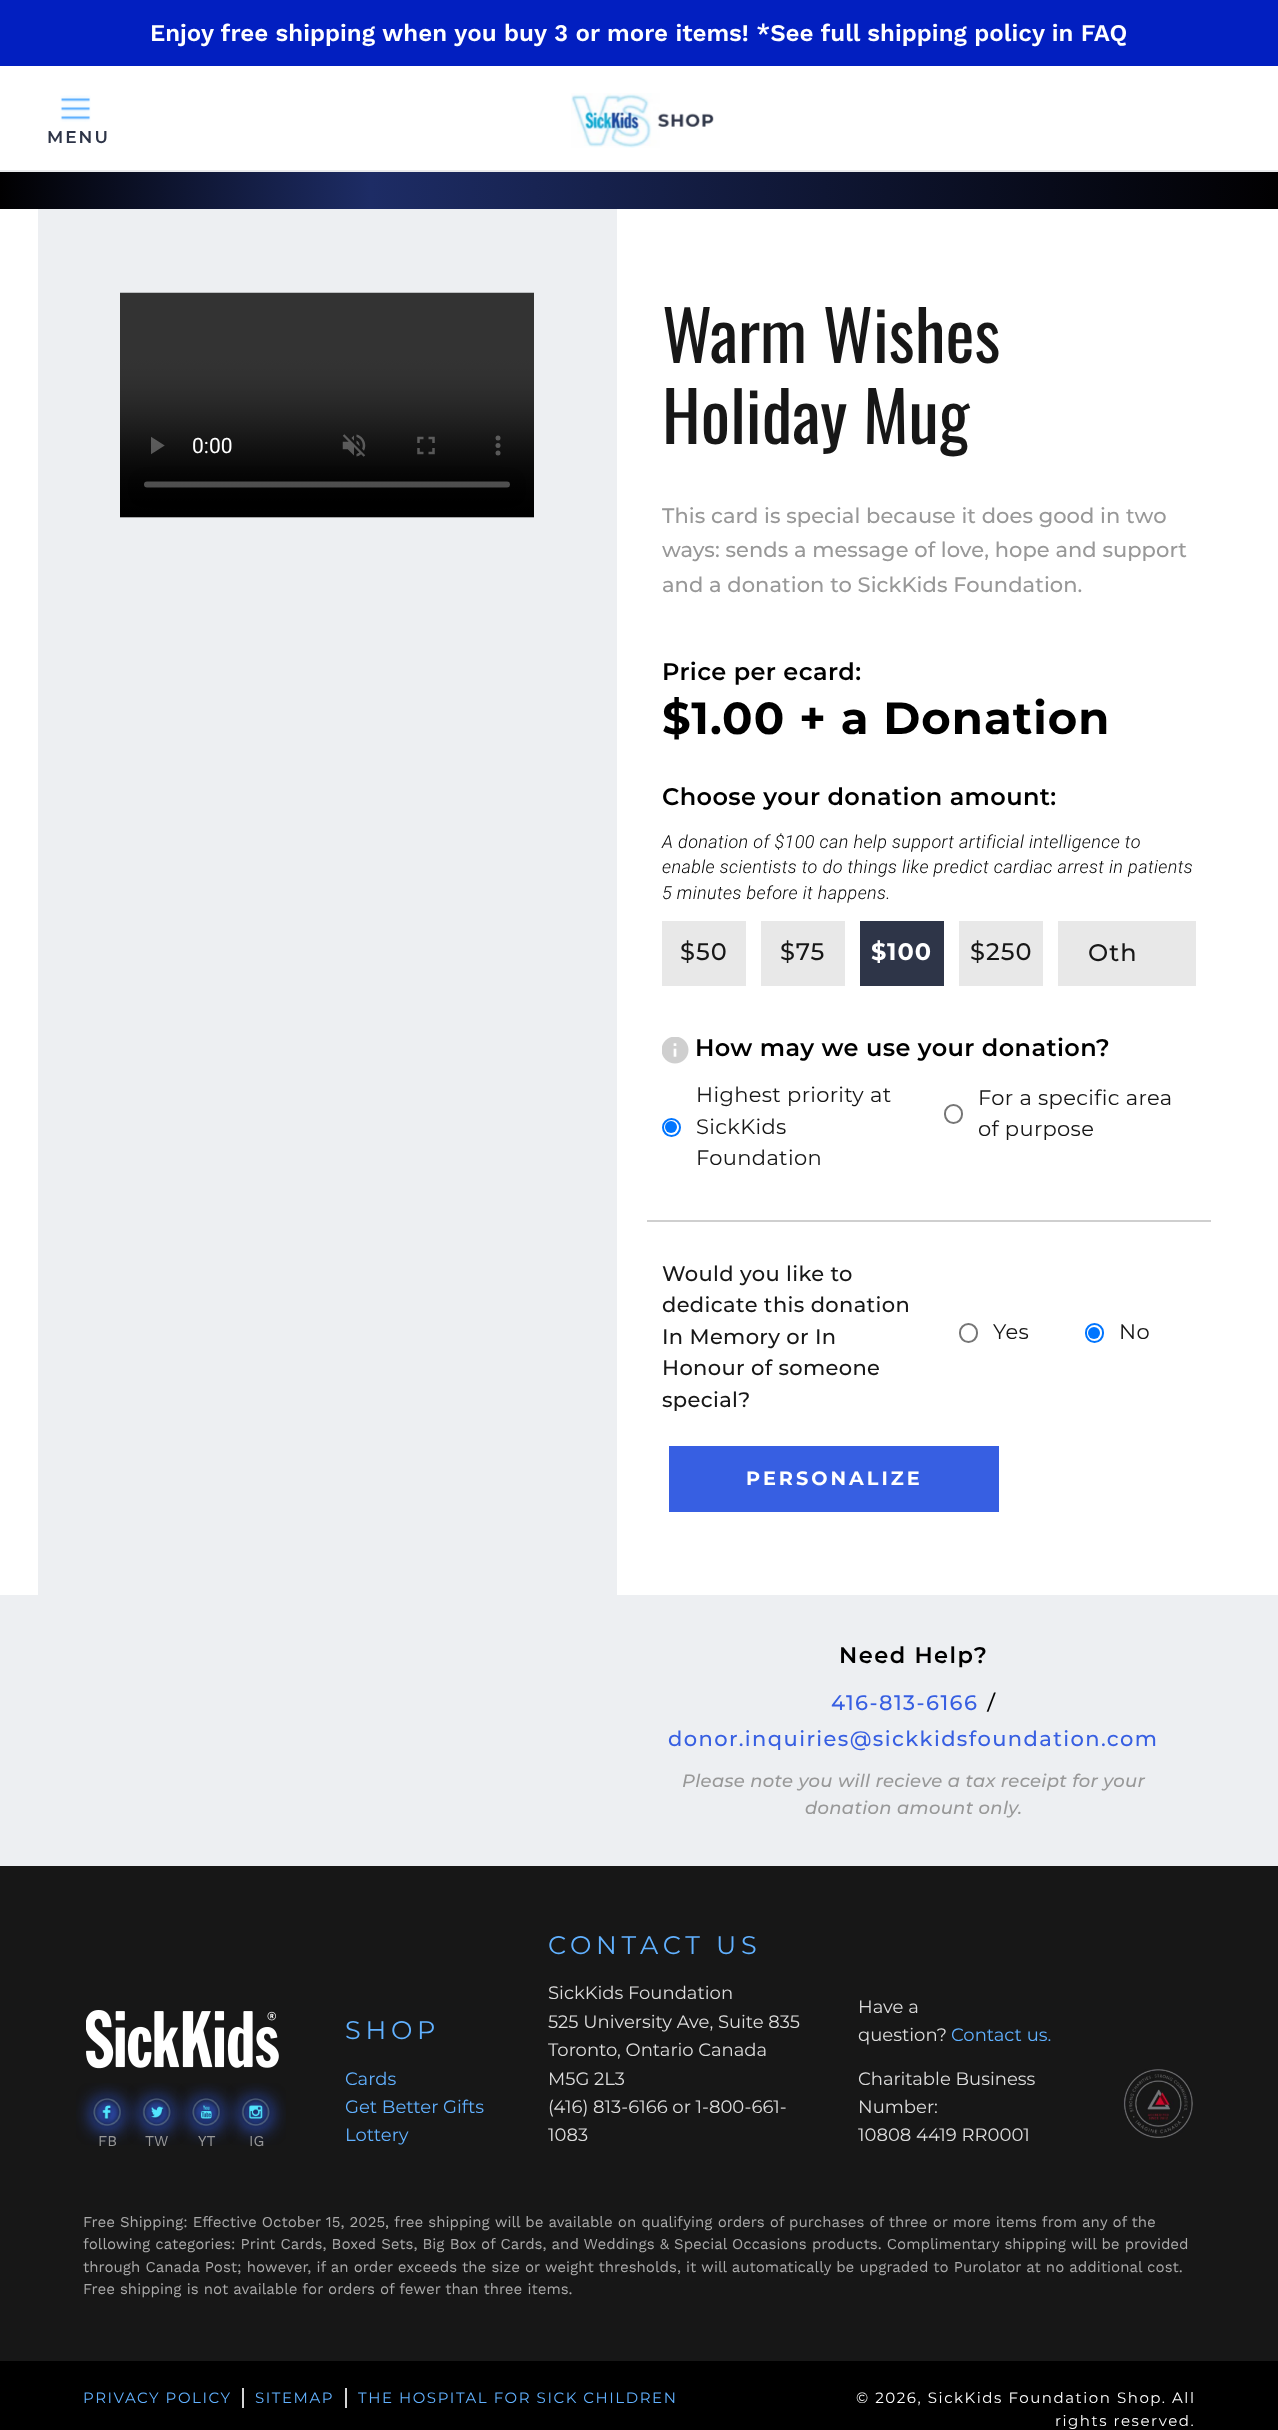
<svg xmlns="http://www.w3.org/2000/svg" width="1278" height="2430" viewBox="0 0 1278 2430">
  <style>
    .t1 { font: 600 24px Work Sans; fill: #fff; }
    .t2 { font: 600 17px Montserrat; letter-spacing: 2px; fill: #2e3548; }
    .t3 { font: 69px Oswald; fill: #171717; }
    .t4 { font: 500 21px Montserrat; letter-spacing: 0.05px; fill: #989898; }
    .t5 { font: 600 24px Montserrat; letter-spacing: 0.4px; fill: #000; }
    .t6 { font: bold 45px Montserrat; letter-spacing: 1px; fill: #000; }
    .t7 { font: italic 300 18px Roboto; letter-spacing: 0.4px; fill: #000; }
    .t8 { font: 500 24px Montserrat; letter-spacing: 1px; fill: #171717; }
    .t9 { font: bold 24px Montserrat; letter-spacing: 1px; fill: #fff; }
    .t10 { font: 100 21px Montserrat; letter-spacing: 0.35px; fill: #171717; }
    .t11 { font: 500 21px Montserrat; letter-spacing: 0.35px; fill: #171717; }
    .t12 { font: bold 19.25px Montserrat; letter-spacing: 3px; fill: #fff; }
    .t13 { font: 600 22.5px Montserrat; letter-spacing: 1.5px; fill: #000; }
    .t14 { font: 500 21px Montserrat; letter-spacing: 1.4px; fill: #375fe2; }
    .t15 { font: 24px Work Sans; fill: #000; }
    .t16 { font: italic 100 18px Montserrat; letter-spacing: 0.3px; fill: #989898; }
    .t17 { font: 100 25.5px Montserrat; letter-spacing: 4.75px; fill: #61b1ff; }
    .t18 { font: 100 18px Montserrat; fill: #61b1ff; }
    .t19 { font: 100 18px Montserrat; fill: #ddd; }
    .t20 { font: 15px Work Sans; fill: #989898; }
    .t21 { font: 15px Work Sans; fill: #aaa; }
    .t22 { font: 100 15px Montserrat; letter-spacing: 1.55px; fill: #61b1ff; }
    .t23 { font: 100 15px Montserrat; letter-spacing: 1.55px; fill: #fff; }
  </style>
  <defs>
    <linearGradient id="g1" gradientUnits="userSpaceOnUse" x1="0" y1="160" x2="1278" y2="160"><stop offset="0" stop-color="#010001"/><stop offset="0.29" stop-color="#1d2c65"/><stop offset="1" stop-color="#010001"/></linearGradient>
  </defs>
  <rect width="100%" height="100%" fill="#fff"/>
  <rect x="0" y="170" width="1278" height="2" fill="#e8e9eb"/>
  <rect x="0" y="0" width="1278" height="66" fill="#021fc0"/>
  <text x="150" y="41" class="t1">Enjoy free shipping when you buy 3 or more items! *See full shipping policy in FAQ</text>
  <image x="60" y="95" width="31" height="27" href="images/1.png"/>
  <text x="47" y="143" class="t2">MENU</text>
  <image x="571" y="93" width="143" height="55" href="images/2.png"/>
  <rect x="0" y="172" width="1278" height="37" fill="url(#g1)"/>
  <rect x="38" y="209" width="579" height="1386" fill="#edeff2"/>
  <image x="120" y="292" width="414" height="226" href="images/3.png"/>
  <text x="662" y="363" class="t3">Warm Wishes</text>
  <text x="662" y="444" class="t3">Holiday Mug</text>
  <text x="662" y="523" class="t4">This card is special because it does good in two</text>
  <text x="662" y="557" class="t4">ways: sends a message of love, hope and support</text>
  <text x="662" y="592" class="t4">and a donation to SickKids Foundation.</text>
  <text x="662" y="680" class="t5">Price per ecard:</text>
  <text x="662" y="734" class="t6">$1.00 + a Donation</text>
  <text x="662" y="805" class="t5">Choose your donation amount:</text>
  <text x="662" y="848" class="t7">A donation of $100 can help support artificial intelligence to</text>
  <text x="662" y="873" class="t7">enable scientists to do things like predict cardiac arrest in patients</text>
  <text x="662" y="899" class="t7">5 minutes before it happens.</text>
  <rect x="662" y="921" width="84" height="65" fill="#e8e8e8"/>
  <text x="680" y="960" class="t8">$50</text>
  <rect x="761" y="921" width="84" height="65" fill="#e8e8e8"/>
  <text x="780" y="960" class="t8">$75</text>
  <rect x="860" y="921" width="84" height="65" fill="#2e3548"/>
  <text x="871" y="960" class="t9">$100</text>
  <rect x="959" y="921" width="84" height="65" fill="#e8e8e8"/>
  <text x="970" y="960" class="t8">$250</text>
  <rect x="1058" y="921" width="138" height="65" fill="#e8e8e8"/>
  <text x="1088" y="961" class="t8">Oth</text>
  <image x="662" y="1037" width="27" height="27" href="images/4.png"/>
  <text x="695" y="1056" class="t5">How may we use your donation?</text>
  <circle cx="671.5" cy="1127.5" r="8.5" fill="none" stroke="#0075ff" stroke-width="2"/>
  <circle cx="671" cy="1127" r="6" fill="#0075ff"/>
  <text x="696" y="1102" class="t10">Highest priority at</text>
  <text x="696" y="1134" class="t10">SickKids</text>
  <text x="696" y="1165" class="t10">Foundation</text>
  <rect x="945" y="1105" width="17" height="18" rx="8.5" fill="none" stroke="#767676" stroke-width="2"/>
  <text x="978" y="1105" class="t10">For a specific area</text>
  <text x="978" y="1136" class="t10">of purpose</text>
  <rect x="647" y="1220" width="564" height="2" fill="#cfcfcf"/>
  <text x="662" y="1281" class="t11">Would you like to</text>
  <text x="662" y="1312" class="t11">dedicate this donation</text>
  <text x="662" y="1344" class="t11">In Memory or In</text>
  <text x="662" y="1375" class="t11">Honour of someone</text>
  <text x="662" y="1407" class="t11">special?</text>
  <rect x="960" y="1324" width="17" height="18" rx="8.5" fill="none" stroke="#767676" stroke-width="2"/>
  <text x="993" y="1339" class="t10">Yes</text>
  <rect x="1086" y="1324" width="17" height="18" rx="8.5" fill="none" stroke="#0075ff" stroke-width="2"/>
  <circle cx="1094" cy="1333" r="6" fill="#0075ff"/>
  <text x="1119" y="1339" class="t10">No</text>
  <rect x="669" y="1446" width="330" height="66" fill="#375fe2"/>
  <text x="746" y="1485" class="t12">PERSONALIZE</text>
  <rect x="0" y="1595" width="1278" height="271" fill="#edeff2"/>
  <text x="839" y="1663" class="t13">Need Help?</text>
  <text x="831" y="1710" class="t14">416-813-6166</text>
  <text x="986" y="1710" class="t15">/</text>
  <text x="668" y="1746" class="t14">donor.inquiries@sickkidsfoundation.com</text>
  <text x="682" y="1787" class="t16">Please note you will recieve a tax receipt for your</text>
  <text x="805" y="1814" class="t16">donation amount only.</text>
  <rect x="0" y="1866" width="1278" height="495" fill="#171717"/>
  <text x="345" y="2039" class="t17">SHOP</text>
  <text x="345" y="2085" class="t18">Cards</text>
  <text x="345" y="2113" class="t18">Get Better Gifts</text>
  <text x="345" y="2141" class="t18">Lottery</text>
  <text x="548" y="1954" class="t17">CONTACT US</text>
  <text x="548" y="1999" class="t19">SickKids Foundation</text>
  <text x="548" y="2028" class="t19">525 University Ave, Suite 835</text>
  <text x="548" y="2056" class="t19">Toronto, Ontario Canada</text>
  <text x="548" y="2085" class="t19">M5G 2L3</text>
  <text x="548" y="2113" class="t19">(416) 813-6166 or 1-800-661-</text>
  <text x="548" y="2141" class="t19">1083</text>
  <text x="858" y="2013" class="t19">Have a</text>
  <text x="858" y="2041" class="t19">question?</text>
  <text x="951" y="2041" class="t18">Contact us.</text>
  <text x="858" y="2085" class="t19">Charitable Business</text>
  <text x="858" y="2113" class="t19">Number:</text>
  <text x="858" y="2141" class="t19">10808 4419 RR0001</text>
  <image x="1123" y="2069" width="70" height="69" href="images/5.png"/>
  <image x="86" y="2010" width="193" height="59" href="images/6.png"/>
  <image x="76" y="2083" width="62" height="62" href="images/7.png"/>
  <text x="98" y="2146" class="t20">FB</text>
  <image x="127" y="2083" width="60" height="62" href="images/8.png"/>
  <text x="145" y="2146" class="t20">TW</text>
  <image x="176" y="2083" width="61" height="62" href="images/9.png"/>
  <text x="198" y="2146" class="t20">YT</text>
  <image x="226" y="2083" width="60" height="62" href="images/10.png"/>
  <text x="249" y="2146" class="t20">IG</text>
  <text x="83" y="2227" class="t21">Free Shipping: Effective October 15, 2025, free shipping will be available on qualifying orders of purchases of three or more items from any of the</text>
  <text x="83" y="2249" class="t21">following categories: Print Cards, Boxed Sets, Big Box of Cards, and Weddings &amp; Special Occasions products. Complimentary shipping will be provided</text>
  <text x="83" y="2272" class="t21">through Canada Post; however, if an order exceeds the size or weight thresholds, it will automatically be upgraded to Purolator at no additional cost.</text>
  <text x="83" y="2294" class="t21">Free shipping is not available for orders of fewer than three items.</text>
  <rect x="0" y="2361" width="1278" height="69" fill="#000"/>
  <text x="83" y="2403" class="t22">PRIVACY POLICY</text>
  <rect x="242" y="2388" width="2" height="20" fill="#d5d5d5"/>
  <text x="255" y="2403" class="t22">SITEMAP</text>
  <rect x="345" y="2388" width="2" height="20" fill="#d5d5d5"/>
  <text x="358" y="2403" class="t22">THE HOSPITAL FOR SICK CHILDREN</text>
  <text x="856" y="2403" class="t23">© 2026, SickKids Foundation Shop. All</text>
  <text x="1055" y="2426" class="t23">rights reserved.</text>
</svg>
